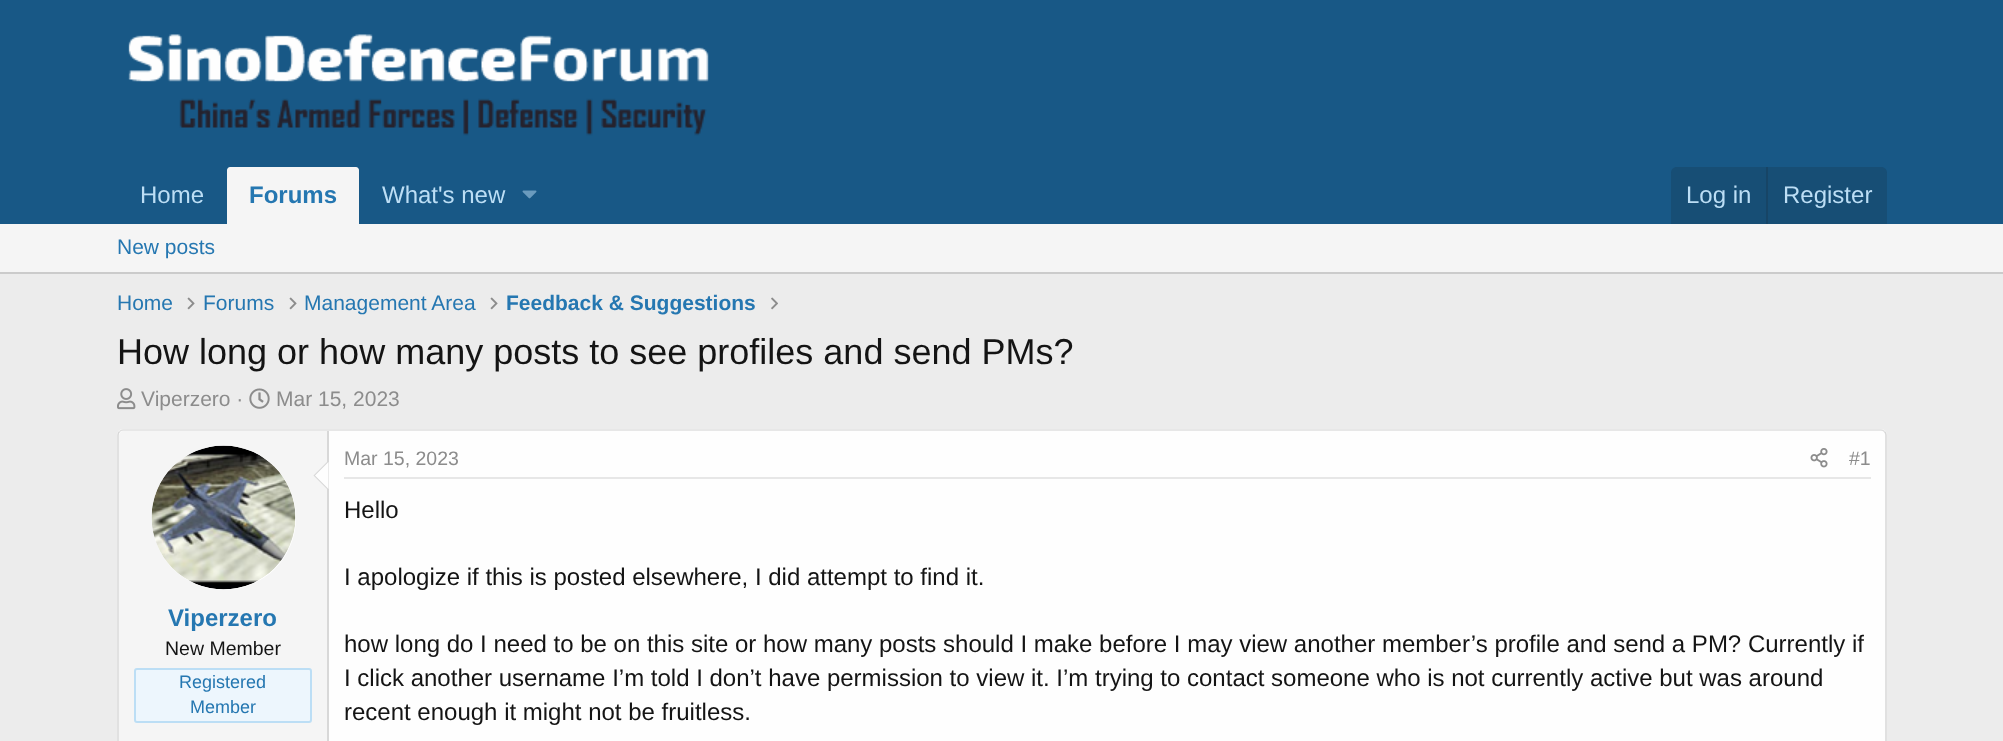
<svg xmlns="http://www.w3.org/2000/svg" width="2003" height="741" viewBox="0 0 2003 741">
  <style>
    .t1 { font: 24px Liberation Sans; fill: #bcdef5; }
    .t2 { font: bold 24px Liberation Sans; fill: #2577b1; }
    .t3 { font: 21px Liberation Sans; fill: #2577b1; }
    .t4 { font: bold 21px Liberation Sans; fill: #2577b1; }
    .t5 { font: 36px Liberation Sans; fill: #141414; }
    .t6 { font: 21px Liberation Sans; fill: #8c8c8c; }
    .t7 { font: 19.5px Liberation Sans; fill: #141414; }
    .t8 { font: 18px Liberation Sans; fill: #2577b1; }
    .t9 { font: 19.5px Liberation Sans; fill: #8c8c8c; }
    .t10 { font: 24px Liberation Sans; fill: #141414; }
  </style>
  <rect width="100%" height="100%" fill="#ececec"/>
  <rect x="0" y="0" width="2003" height="224" fill="#185886"/>
  <image x="128" y="34" width="581" height="102" href="images/1.png"/>
  <text x="140" y="203" class="t1">Home</text>
  <path d="M230 167H356C357.5 167 359 168.5 359 170V224H227V170C227 168.5 228.5 167 230 167Z" fill="#f5f5f5"/>
  <text x="249" y="203" class="t2">Forums</text>
  <text x="382" y="203" class="t1">What's new</text>
  <image x="522" y="190" width="15" height="9" href="images/2.png"/>
  <path d="M1677 167H1881C1884.5 167 1887 169.5 1887 173V224H1671V173C1671 169.5 1673.5 167 1677 167Z" fill="#174e75"/>
  <text x="1686" y="203" class="t1">Log in</text>
  <rect x="1766" y="167" width="2" height="57" fill="#174566"/>
  <text x="1783" y="203" class="t1">Register</text>
  <rect x="0" y="224" width="2003" height="48" fill="#f5f5f5"/>
  <rect x="0" y="272" width="2003" height="2" fill="#cbcbcb"/>
  <text x="117" y="254" class="t3">New posts</text>
  <text x="117" y="310" class="t3">Home</text>
  <image x="187" y="297" width="8" height="13" href="images/3.png"/>
  <text x="203" y="310" class="t3">Forums</text>
  <image x="289" y="297" width="8" height="13" href="images/3.png"/>
  <text x="304" y="310" class="t3">Management Area</text>
  <image x="490" y="297" width="8" height="13" href="images/3.png"/>
  <text x="506" y="310" class="t4">Feedback &amp; Suggestions</text>
  <image x="771" y="297" width="7" height="13" href="images/4.png"/>
  <text x="117" y="364" class="t5">How long or how many posts to see profiles and send PMs?</text>
  <image x="117" y="388" width="19" height="22" href="images/5.png"/>
  <text x="141" y="406" class="t6">Viperzero ·</text>
  <image x="249" y="388" width="21" height="21" href="images/6.png"/>
  <text x="276" y="406" class="t6">Mar 15, 2023</text>
  <rect x="117" y="429" width="1770" height="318" rx="6" fill="#fefefe"/>
  <path d="M119.5 431.5C120.5 430.5 121.5 430 123 430H1881C1882.5 430 1883.5 430.5 1884.5 431.5" fill="none" stroke="#dfdfdf" stroke-width="1.5"/>
  <path d="M1884.5 431.5C1885.5 432.5 1886 433.5 1886 435V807C1886 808.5 1885.5 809.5 1884.5 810.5" fill="none" stroke="#d8d8d8" stroke-width="1.5"/>
  <path d="M119.5 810.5C118.5 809.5 118 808.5 118 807V435C118 433.5 118.5 432.5 119.5 431.5" fill="none" stroke="#d8d8d8" stroke-width="1.5"/>
  <path d="M124 431H329V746H124C121 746 119 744 119 741V436C119 433 121 431 124 431Z" fill="#f5f5f5"/>
  <rect x="327" y="431" width="2" height="310" fill="#d8d8d8"/>
  <circle cx="224" cy="518" r="72" fill="#fefefe"/>
  <image x="151" y="445" width="145" height="145" href="images/7.png"/>
  <path d="M328.5 460.5V490.5L313.5 475.5Z" fill="#d8d8d8"/>
  <path d="M328.5 462V489L315 475.5Z" fill="#fefefe"/>
  <text x="168" y="626" class="t2">Viperzero</text>
  <text x="165" y="655" class="t7">New Member</text>
  <rect x="135" y="669" width="176" height="53" rx="2" fill="#edf6fd" stroke="#bcdef5" stroke-width="2"/>
  <text x="179" y="688" class="t8">Registered</text>
  <text x="190" y="713" class="t8">Member</text>
  <rect x="344" y="477" width="1527" height="2" fill="#e7e7e7"/>
  <text x="344" y="465" class="t9">Mar 15, 2023</text>
  <image x="1810" y="448" width="18" height="20" href="images/8.png"/>
  <text x="1849" y="465" class="t9">#1</text>
  <text x="344" y="518" class="t10">Hello</text>
  <text x="344" y="585" class="t10">I apologize if this is posted elsewhere, I did attempt to find it.</text>
  <text x="344" y="652" class="t10">how long do I need to be on this site or how many posts should I make before I may view another member’s profile and send a PM? Currently if</text>
  <text x="344" y="686" class="t10">I click another username I’m told I don’t have permission to view it. I’m trying to contact someone who is not currently active but was around</text>
  <text x="344" y="720" class="t10">recent enough it might not be fruitless.</text>
</svg>
